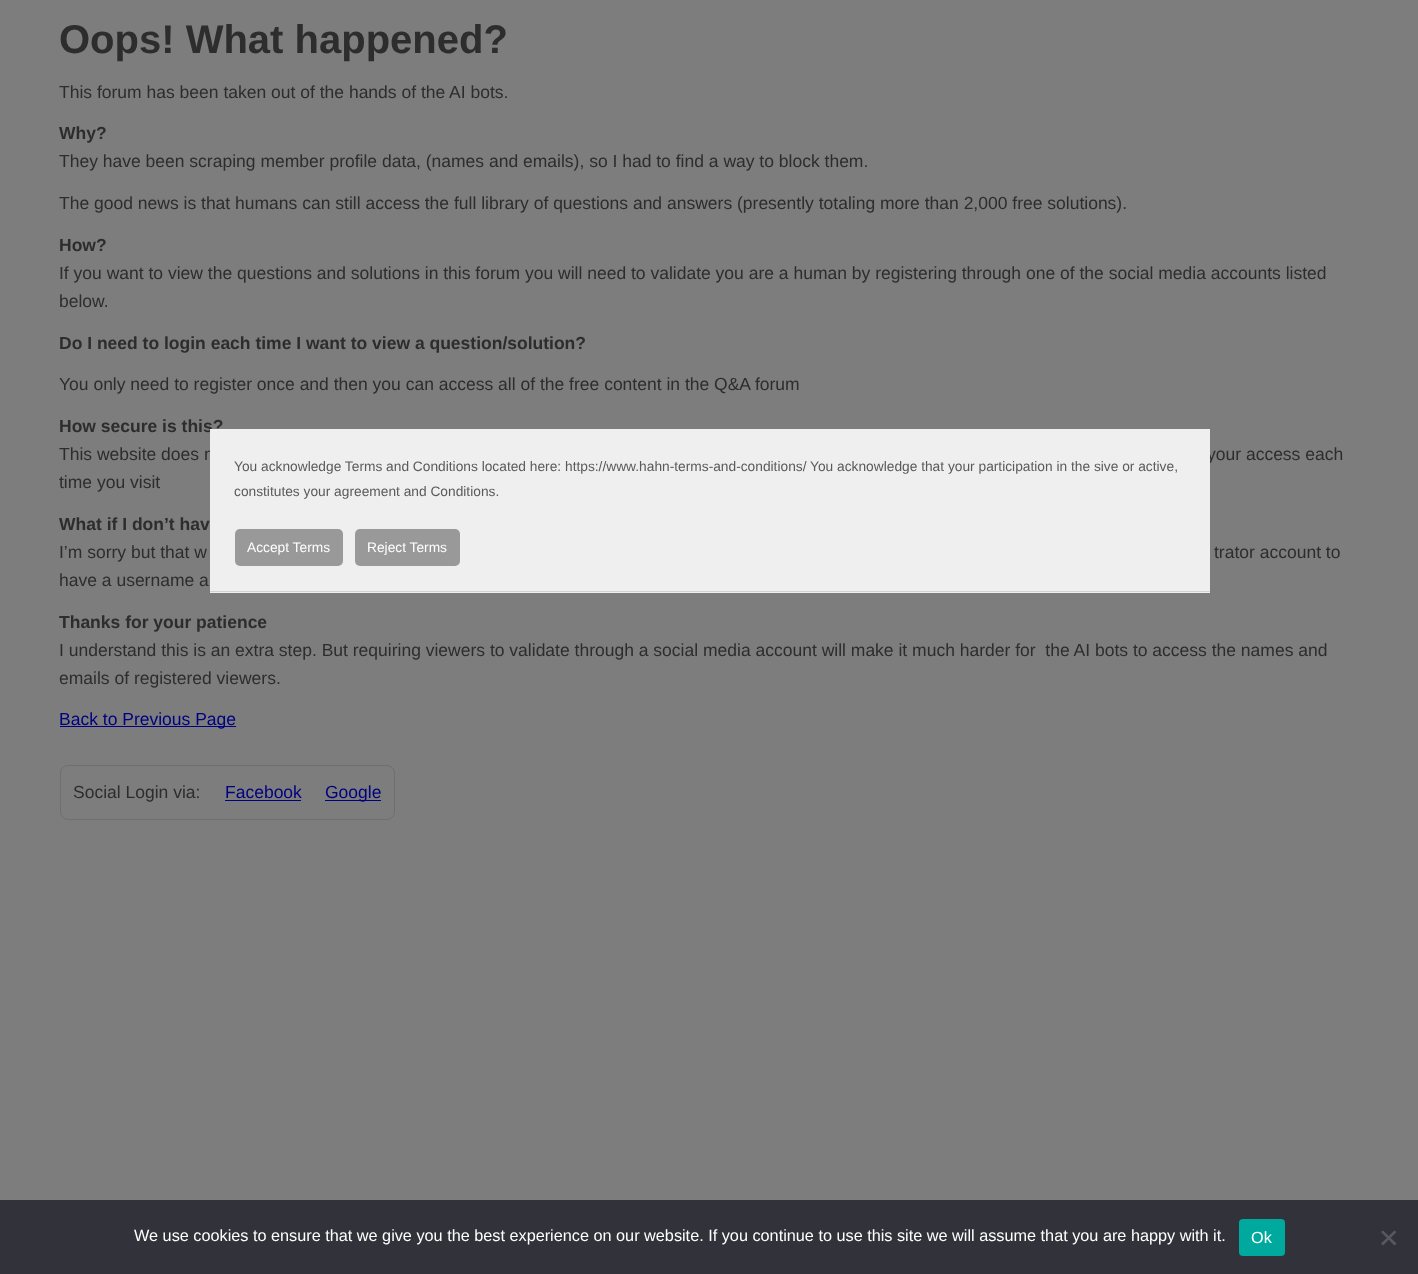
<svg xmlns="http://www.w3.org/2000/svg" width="1418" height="1274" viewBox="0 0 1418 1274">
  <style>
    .t1 { font: bold 40px Liberation Sans; fill: #2d2d2d; }
    .t2 { font: 17.5px Liberation Sans; fill: #2d2d2d; }
    .t3 { font: bold 17.5px Liberation Sans; fill: #2d2d2d; }
    .t4 { font: 17.5px Liberation Sans; fill: #000080; }
    .t5 { font: 13.75px Liberation Sans; fill: #5a5a5a; }
    .t6 { font: 13.75px Liberation Sans; fill: #fff; }
    .t7 { font: 16.25px Liberation Sans; fill: #fff; }
  </style>
  <rect width="100%" height="100%" fill="#7d7d7d"/>
  <text x="59" y="53" class="t1">Oops! What happened?</text>
  <text x="59" y="98" class="t2">This forum has been taken out of the hands of the AI bots.</text>
  <text x="59" y="139" class="t3">Why?</text>
  <text x="59" y="167" class="t2">They have been scraping member profile data, (names and emails), so I had to find a way to block them.</text>
  <text x="59" y="209" class="t2">The good news is that humans can still access the full library of questions and answers (presently totaling more than 2,000 free solutions).</text>
  <text x="59" y="251" class="t3">How?</text>
  <text x="59" y="279" class="t2">If you want to view the questions and solutions in this forum you will need to validate you are a human by registering through one of the social media accounts listed</text>
  <text x="59" y="307" class="t2">below.</text>
  <text x="59" y="349" class="t3">Do I need to login each time I want to view a question/solution?</text>
  <text x="59" y="390" class="t2">You only need to register once and then you can access all of the free content in the Q&amp;A forum</text>
  <text x="59" y="432" class="t3">How secure is this?</text>
  <text x="59" y="460" class="t2">This website does n</text>
  <text x="1207" y="460" class="t2">your access each</text>
  <text x="59" y="488" class="t2">time you visit</text>
  <text x="59" y="530" class="t3">What if I don’t hav</text>
  <text x="59" y="558" class="t2">I’m sorry but that w</text>
  <text x="1214" y="558" class="t2">trator account to</text>
  <text x="59" y="586" class="t2">have a username a</text>
  <text x="59" y="628" class="t3">Thanks for your patience</text>
  <text x="59" y="656" class="t2" xml:space="preserve">I understand this is an extra step. But requiring viewers to validate through a social media account will make it much harder for  the AI bots to access the names and</text>
  <text x="59" y="684" class="t2">emails of registered viewers.</text>
  <rect x="60" y="726" width="176" height="1" fill="#000080"/>
  <text x="59" y="725" class="t4">Back to Previous Page</text>
  <rect x="60.5" y="765.5" width="334" height="54" rx="7.5" fill="none" stroke="#6f6f6f"/>
  <text x="73" y="798" class="t2">Social Login via:</text>
  <text x="225" y="798" class="t4">Facebook</text>
  <rect x="225" y="800" width="76" height="1" fill="#000080"/>
  <rect x="325" y="800" width="56" height="1" fill="#000080"/>
  <text x="325" y="798" class="t4">Google</text>
  <rect x="210" y="429" width="1000" height="164" fill="#efefef"/>
  <rect x="210" y="591" width="1000" height="1" fill="#d3d0d0"/>
  <text x="234" y="471" class="t5">You acknowledge Terms and Conditions located here: https://www.hahn-terms-and-conditions/ You acknowledge that your participation in the sive or active,</text>
  <text x="234" y="496" class="t5">constitutes your agreement and Conditions.</text>
  <rect x="235" y="529" width="108" height="37" rx="5" fill="#999"/>
  <text x="247" y="552" class="t6">Accept Terms</text>
  <rect x="355" y="529" width="105" height="37" rx="5" fill="#999"/>
  <text x="367" y="552" class="t6">Reject Terms</text>
  <rect x="0" y="1200" width="1418" height="74" fill="#32323a"/>
  <text x="134" y="1241" class="t7">We use cookies to ensure that we give you the best experience on our website. If you continue to use this site we will assume that you are happy with it.</text>
  <rect x="1239" y="1219" width="46" height="37" rx="4" fill="#00a99d"/>
  <text x="1251" y="1243" class="t7">Ok</text>
  <path d="M1394.5 1230.5L1396.5 1232L1383 1245.5L1381 1243.5Z" fill="#59595d"/>
  <path d="M1381 1232L1383 1230.5L1396.5 1243.5L1394.5 1245.5Z" fill="#59595d"/>
</svg>
